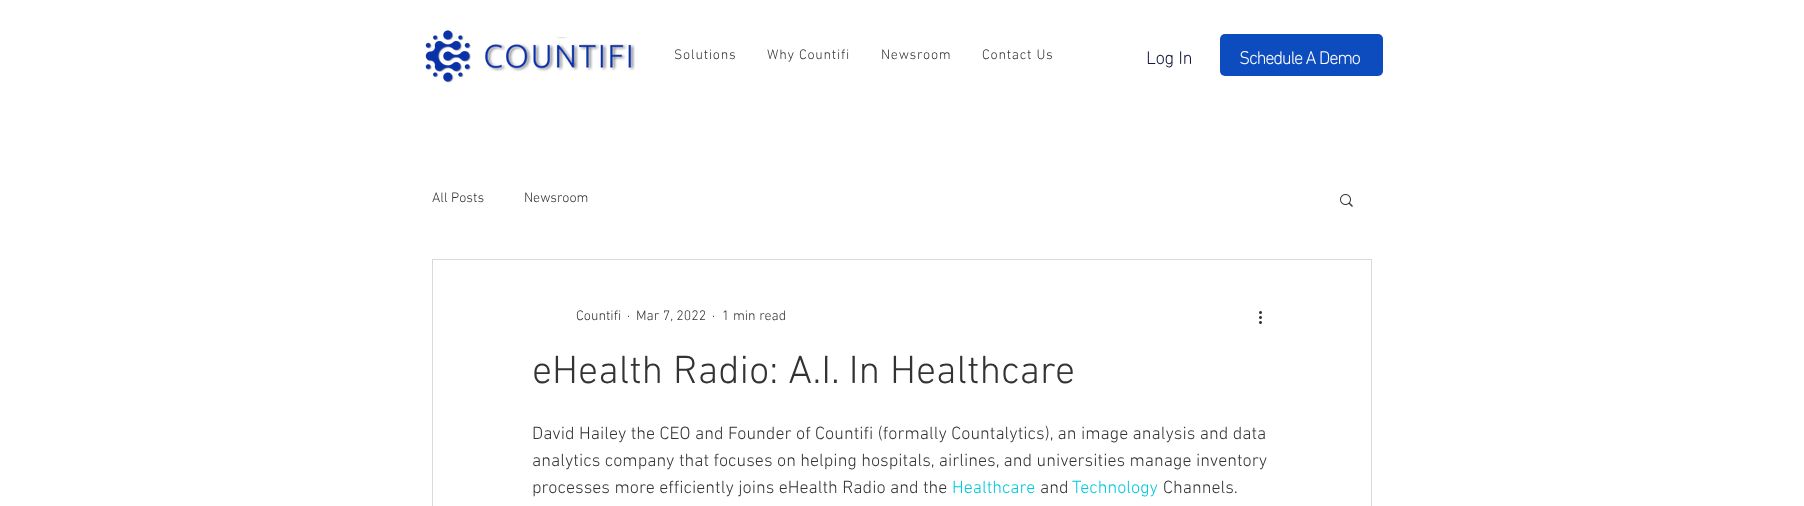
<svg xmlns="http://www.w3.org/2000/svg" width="1804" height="506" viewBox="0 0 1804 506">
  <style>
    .t1 { font: 300 14px 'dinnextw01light'; letter-spacing: 0.75px; fill: #323333; }
    .t2 { font: bold 18px 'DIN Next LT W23'; fill: #14163f; }
    .t3 { font: bold 18px 'DIN Next LT W23'; letter-spacing: -0.9px; fill: #fff; }
    .t4 { font: 300 14px 'dinnextw01light'; fill: #323333; }
    .t5 { font: 300 40px 'dinnextw01light'; fill: #323333; }
    .t6 { font: 300 18px 'dinnextw01light'; fill: #323333; }
    .t7 { font: 300 18px 'dinnextw01light'; fill: #00c8dc; }
  </style>
  <rect width="100%" height="100%" fill="#fff"/>
  <image x="425" y="30" width="46" height="53" href="images/1.png"/>
  <image x="485" y="37" width="150" height="35" href="images/2.png"/>
  <text x="674" y="59" class="t1">Solutions</text>
  <text x="767" y="59" class="t1">Why Countifi</text>
  <text x="881" y="59" class="t1">Newsroom</text>
  <text x="982" y="59" class="t1">Contact Us</text>
  <text x="1146" y="64" class="t2">Log In</text>
  <rect x="1220" y="34" width="163" height="42" rx="5" fill="#0d4cbf"/>
  <text x="1239" y="64" class="t3">Schedule A Demo</text>
  <text x="432" y="202" class="t4">All Posts</text>
  <text x="524" y="202" class="t4">Newsroom</text>
  <image x="1340" y="194" width="13" height="13" href="images/3.png"/>
  <rect x="432.5" y="259.5" width="939" height="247" fill="none" stroke="#d9d9d7"/>
  <text x="576" y="320" class="t4">Countifi</text>
  <text x="627" y="320" class="t4">·</text>
  <text x="636" y="320" class="t4">Mar 7, 2022</text>
  <text x="712" y="320" class="t4">·</text>
  <text x="722" y="320" class="t4">1 min read</text>
  <image x="1259" y="311" width="3" height="13" href="images/4.png"/>
  <text x="532" y="383" class="t5">eHealth Radio: A.I. In Healthcare</text>
  <text x="532" y="439" class="t6">David Hailey the CEO and Founder of Countifi (formally Countalytics), an image analysis and data</text>
  <text x="532" y="466" class="t6">analytics company that focuses on helping hospitals, airlines, and universities manage inventory</text>
  <text x="532" y="493" class="t6">processes more efficiently joins eHealth Radio and the</text>
  <text x="952" y="493" class="t7">Healthcare</text>
  <text x="1040" y="493" class="t6">and</text>
  <text x="1072" y="493" class="t7">Technology</text>
  <text x="1163" y="493" class="t6">Channels.</text>
</svg>
